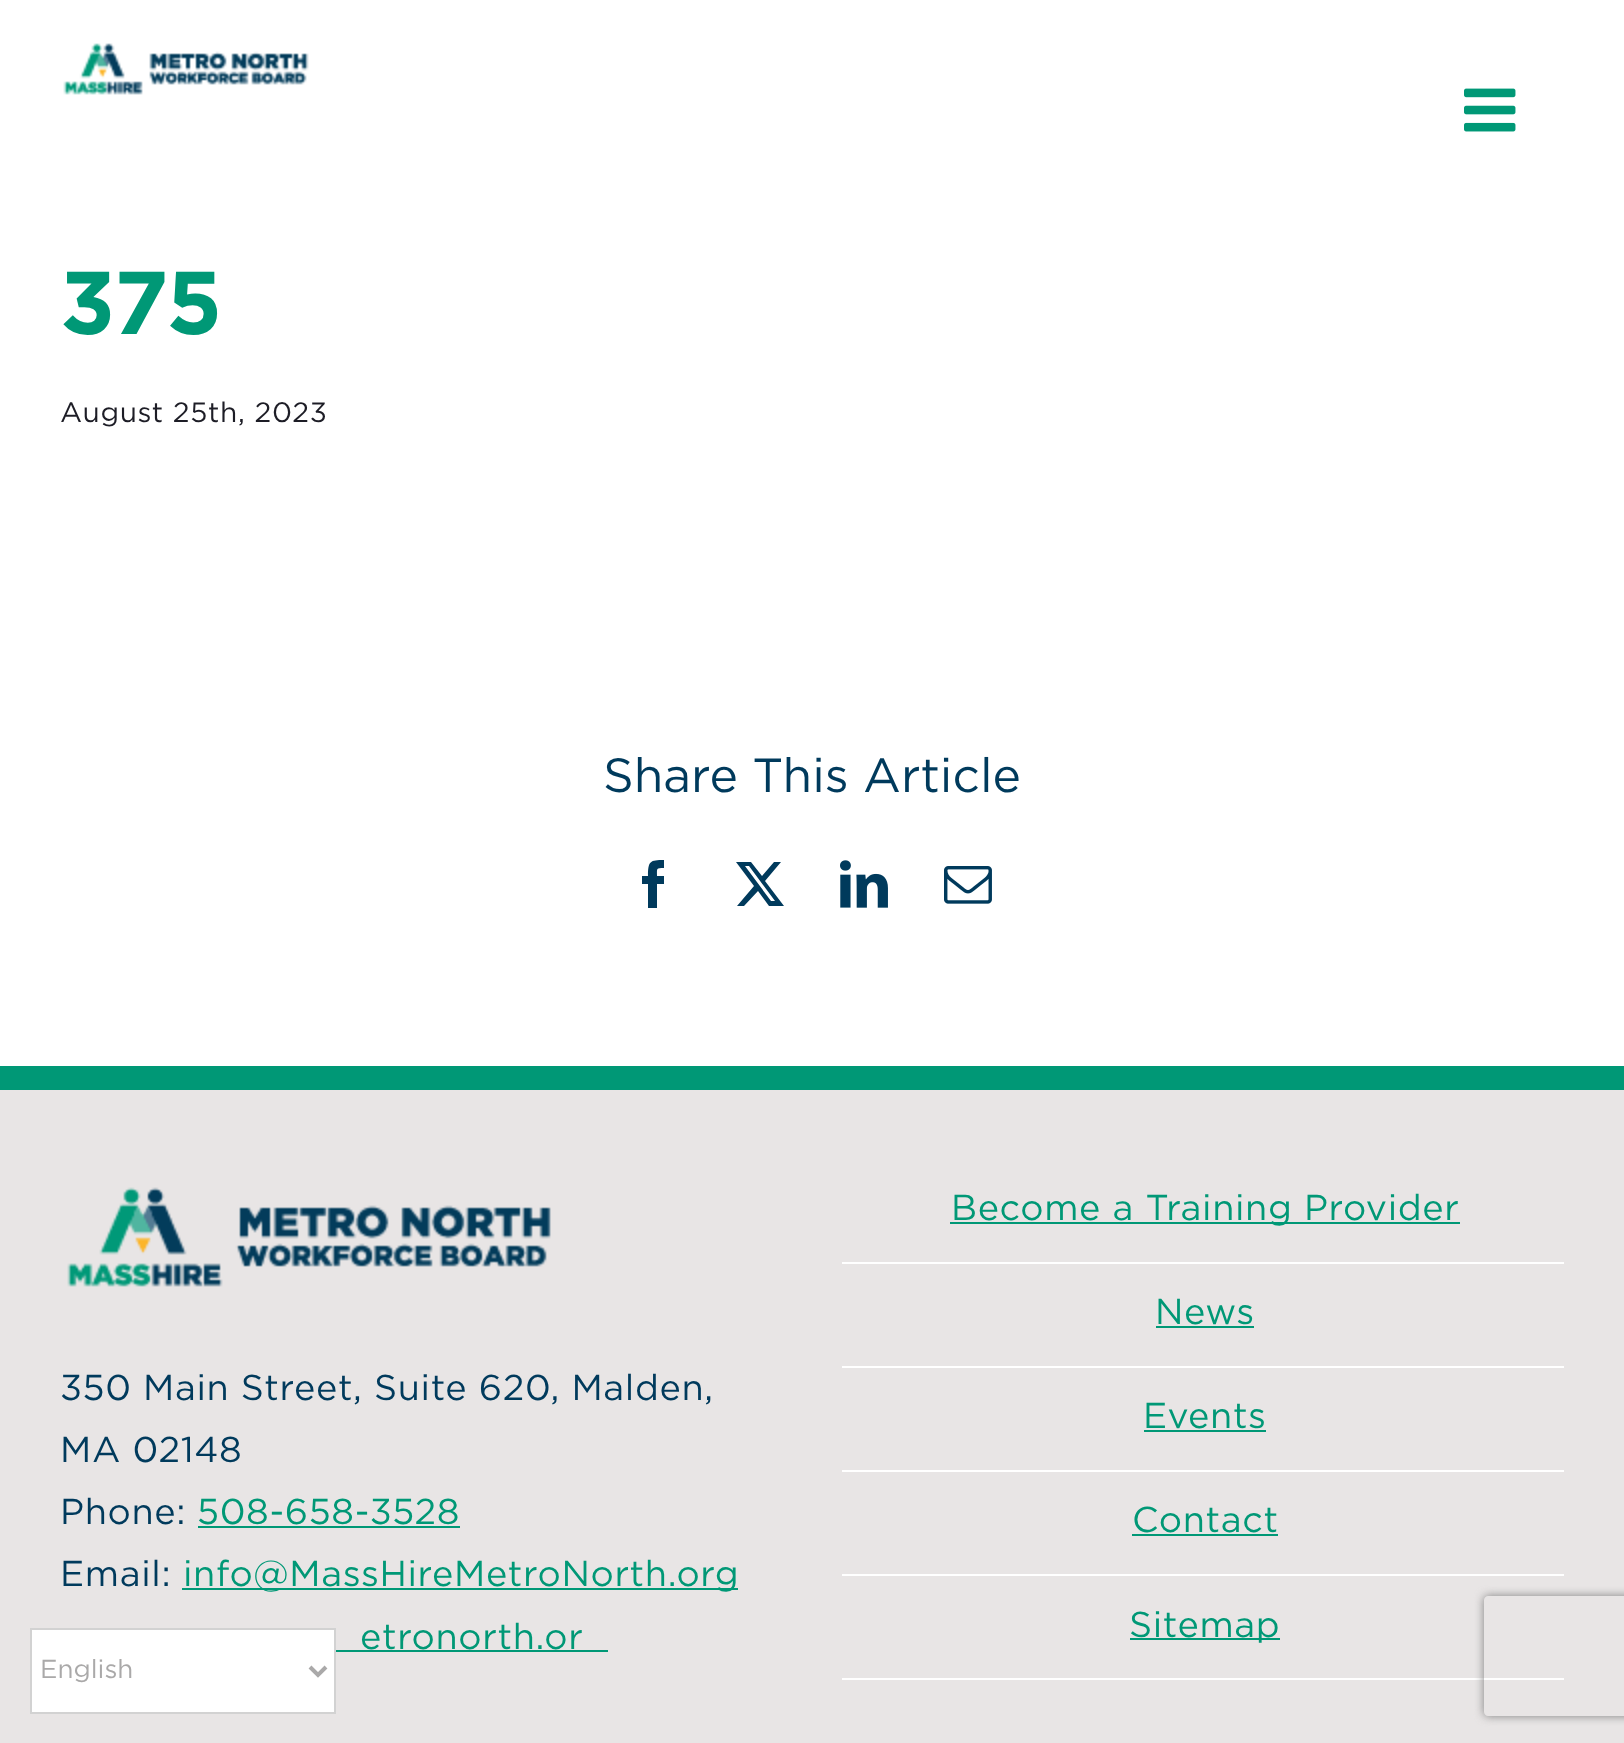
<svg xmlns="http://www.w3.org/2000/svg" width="1624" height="1743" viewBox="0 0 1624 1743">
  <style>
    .t1 { font: bold 89px Gotham; fill: #009876; }
    .t2 { font: 28px Gotham; letter-spacing: 0.65px; fill: #1d1d26; }
    .t3 { font: 48px Gotham; fill: #003a5c; }
    .t4 { font: 36px Gotham; letter-spacing: 0.65px; fill: #003a5c; }
    .t5 { font: 36px Gotham; letter-spacing: 0.65px; fill: #009876; }
    .t6 { font: 26px Gotham; fill: #aaa9a9; }
  </style>
  <defs>
    <clipPath id="clip1"><path d="M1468 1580H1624V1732H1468ZM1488 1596H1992C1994 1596 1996 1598 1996 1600V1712C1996 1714 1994 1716 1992 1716H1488C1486 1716 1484 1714 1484 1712V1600C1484 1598 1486 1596 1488 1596Z" clip-rule="evenodd"/></clipPath>
  </defs>
  <rect width="100%" height="100%" fill="#fff"/>
  <image x="63" y="43" width="246" height="52" href="images/1.png"/>
  <image x="1464" y="88" width="52" height="44" href="images/2.png"/>
  <text x="60" y="334" class="t1">375</text>
  <text x="60" y="422" class="t2">August 25th, 2023</text>
  <text x="603" y="792" class="t3">Share This Article</text>
  <path d="M657 908H648V884H642V876H648C648 861 650 860 664 860V868C656 868 657 868 657 876H664V884H657Z" fill="#003a5c"/>
  <path d="M774 862H781L765 881L784 906H769L758 891L744 906H737L754 886L736 862H751L762 876ZM771 901H775L749 866H745Z" fill="#003a5c"/>
  <image x="840" y="860" width="48" height="48" href="images/3.png"/>
  <image x="944" y="866" width="48" height="38" href="images/4.png"/>
  <rect x="0" y="1090" width="1624" height="653" fill="#e8e5e5"/>
  <rect x="0" y="1066" width="1624" height="24" fill="#009876"/>
  <image x="67" y="1187" width="484" height="100" href="images/5.png"/>
  <text x="60" y="1400" class="t4">350 Main Street, Suite 620, Malden,</text>
  <text x="60" y="1462" class="t4">MA 02148</text>
  <text x="60" y="1524" class="t4">Phone:</text>
  <text x="197" y="1524" class="t5">508-658-3528</text>
  <rect x="198" y="1526" width="262" height="2" fill="#009876"/>
  <text x="60" y="1586" class="t4">Email:</text>
  <rect x="182" y="1588" width="556" height="2" fill="#009876"/>
  <text x="183" y="1586" class="t5">info@MassHireMetroNorth.org</text>
  <text x="360" y="1649" class="t5">etronorth.or</text>
  <rect x="336" y="1650" width="272" height="2" fill="#009876"/>
  <rect x="842" y="1262" width="722" height="2" fill="#fff"/>
  <rect x="950" y="1222" width="510" height="2" fill="#009876"/>
  <text x="951" y="1220" class="t5">Become a Training Provider</text>
  <rect x="842" y="1366" width="722" height="2" fill="#fff"/>
  <text x="1155" y="1324" class="t5">News</text>
  <rect x="1156" y="1326" width="98" height="2" fill="#009876"/>
  <rect x="842" y="1470" width="722" height="2" fill="#fff"/>
  <text x="1143" y="1428" class="t5">Events</text>
  <rect x="1144" y="1430" width="122" height="2" fill="#009876"/>
  <rect x="842" y="1574" width="722" height="2" fill="#fff"/>
  <text x="1132" y="1532" class="t5">Contact</text>
  <rect x="1132" y="1534" width="146" height="2" fill="#009876"/>
  <rect x="842" y="1678" width="722" height="2" fill="#fff"/>
  <rect x="1130" y="1638" width="150" height="2" fill="#009876"/>
  <text x="1129" y="1637" class="t5">Sitemap</text>
  <g clip-path="url(#clip1)">
    <rect x="1484" y="1596" width="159" height="120" rx="4" fill="#808080" filter="blur(5px)"/>
  </g>
  <rect x="31" y="1629" width="304" height="84" fill="#fff" stroke="#d2d2d2" stroke-width="2"/>
  <path d="M310 1667L318 1675L326 1667" fill="none" stroke="#aaa9a9" stroke-width="4"/>
  <text x="40" y="1678" class="t6">English</text>
</svg>
